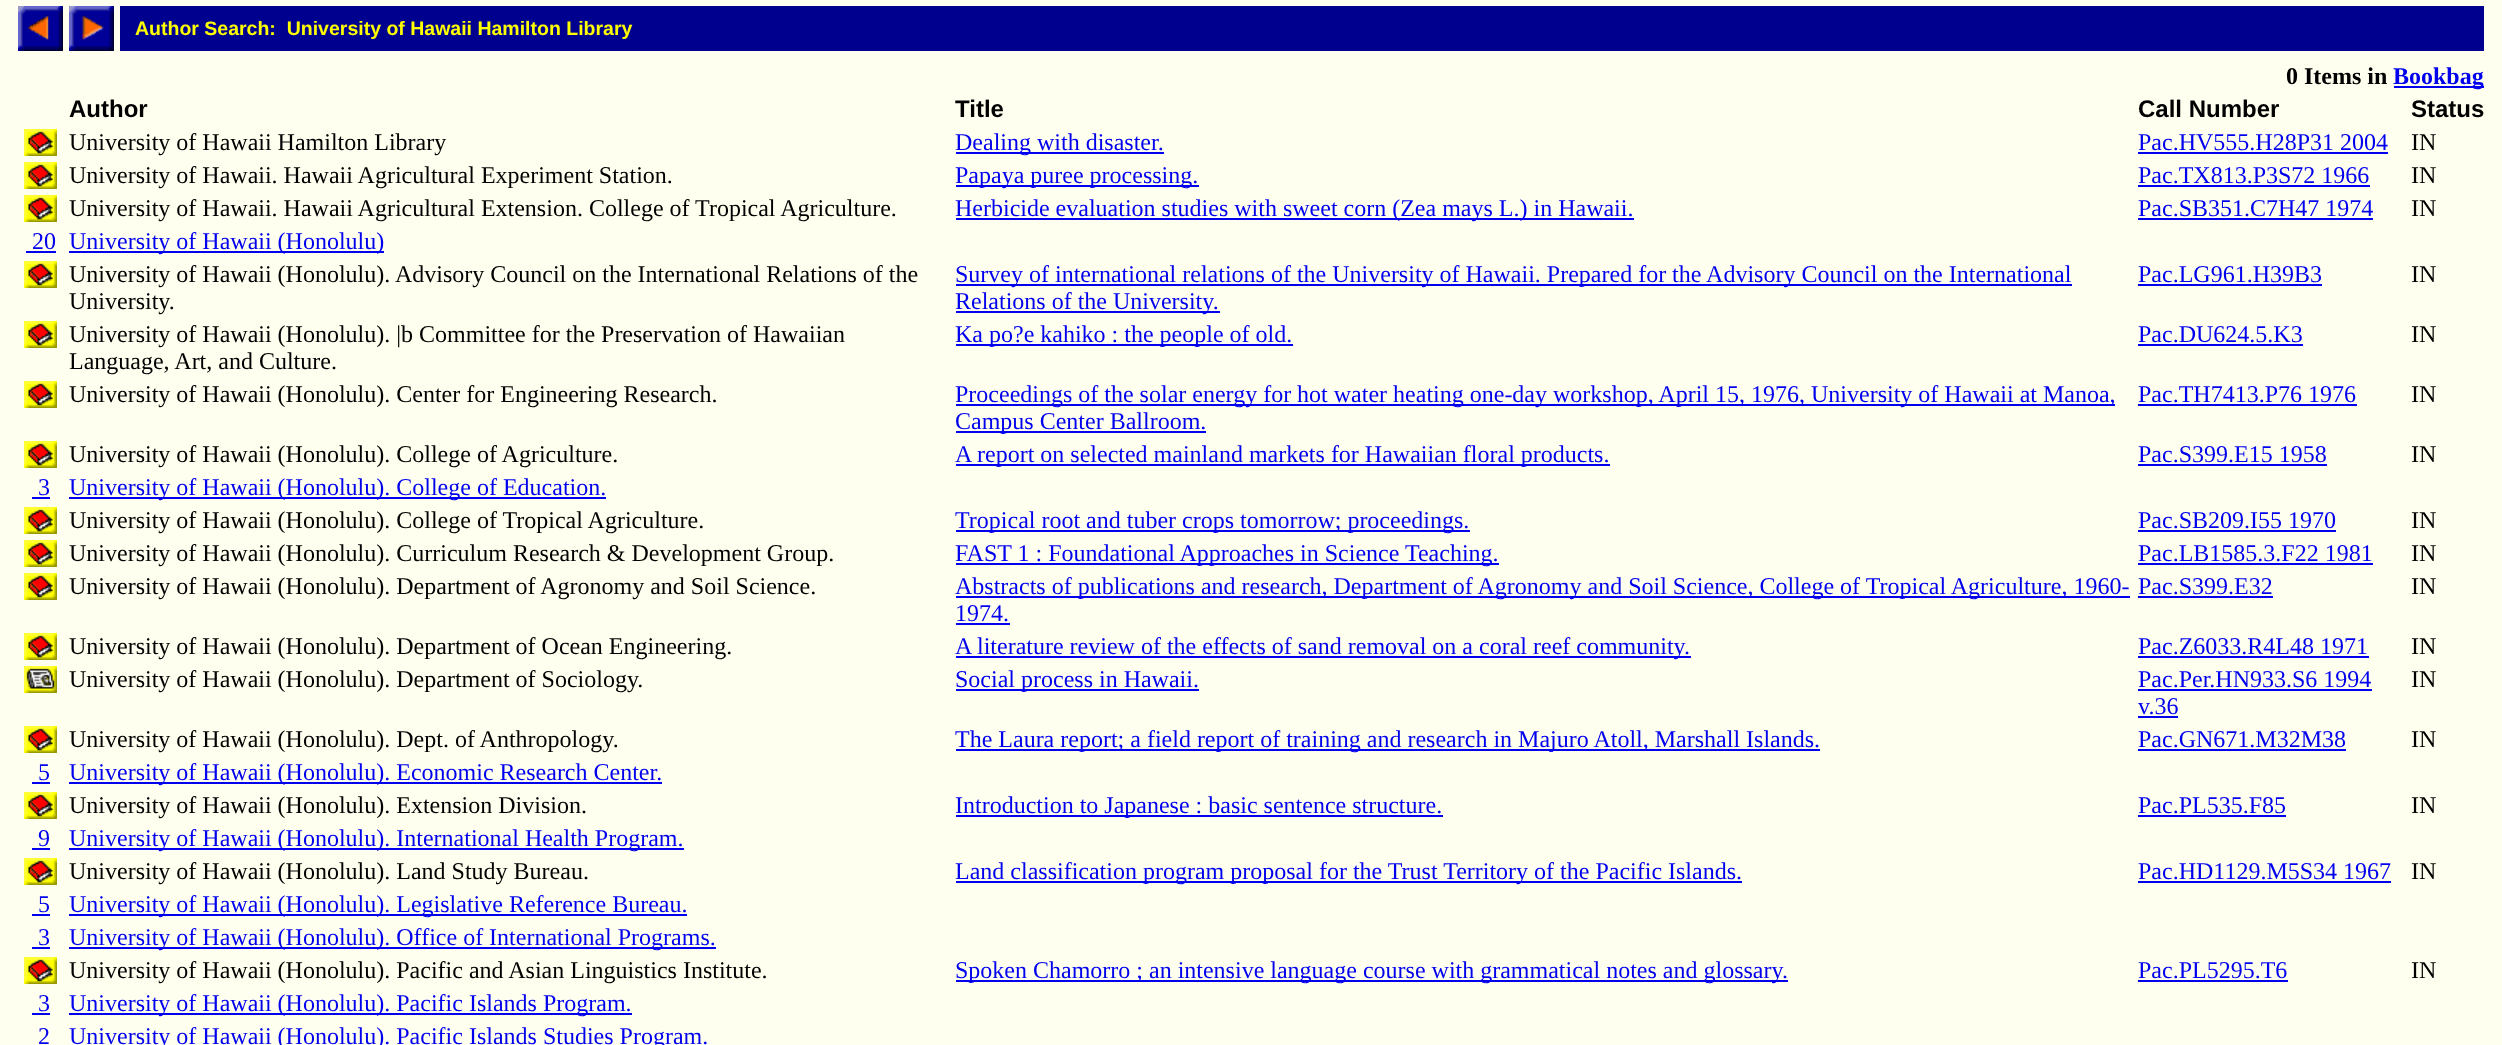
<svg xmlns="http://www.w3.org/2000/svg" width="2502" height="1045" viewBox="0 0 2502 1045">
  <style>
    .t1 { font: bold 19.5px Liberation Sans; fill: #ff0; }
    .t2 { font: bold 24px Liberation Serif; fill: #000; }
    .t3 { font: bold 24px Liberation Serif; fill: #00e; }
    .t4 { font: bold 24px Liberation Sans; fill: #000; }
    .t5 { font: 24px Liberation Serif; fill: #000; }
    .t6 { font: 24px Liberation Serif; fill: #00e; }
  </style>
  <rect width="100%" height="100%" fill="#ffffef"/>
  <image x="18" y="6" width="45" height="45" href="images/1.png"/>
  <image x="69" y="6" width="45" height="45" href="images/2.png"/>
  <rect x="120" y="6" width="2364" height="45" fill="#00008e"/>
  <text x="135" y="35" class="t1" xml:space="preserve">Author Search:  University of Hawaii Hamilton Library</text>
  <text x="2286" y="84" class="t2">0 Items in</text>
  <rect x="2394" y="86" width="90" height="2" fill="#00e"/>
  <text x="2393" y="84" class="t3">Bookbag</text>
  <text x="69" y="117" class="t4">Author</text>
  <text x="955" y="117" class="t4">Title</text>
  <text x="2138" y="117" class="t4">Call Number</text>
  <text x="2411" y="117" class="t4">Status</text>
  <image x="24" y="129" width="33" height="27" href="images/3.png"/>
  <text x="69" y="150" class="t5">University of Hawaii Hamilton Library</text>
  <rect x="956" y="152" width="208" height="2" fill="#00e"/>
  <text x="955" y="150" class="t6">Dealing with disaster.</text>
  <text x="2138" y="150" class="t6">Pac.HV555.H28P31 2004</text>
  <rect x="2138" y="152" width="250" height="2" fill="#00e"/>
  <text x="2411" y="150" class="t5">IN</text>
  <image x="24" y="162" width="33" height="27" href="images/3.png"/>
  <text x="69" y="183" class="t5">University of Hawaii. Hawaii Agricultural Experiment Station.</text>
  <rect x="956" y="185" width="243" height="2" fill="#00e"/>
  <text x="955" y="183" class="t6">Papaya puree processing.</text>
  <text x="2138" y="183" class="t6">Pac.TX813.P3S72 1966</text>
  <rect x="2138" y="185" width="232" height="2" fill="#00e"/>
  <text x="2411" y="183" class="t5">IN</text>
  <image x="24" y="195" width="33" height="27" href="images/3.png"/>
  <text x="69" y="216" class="t5">University of Hawaii. Hawaii Agricultural Extension. College of Tropical Agriculture.</text>
  <rect x="956" y="218" width="678" height="2" fill="#00e"/>
  <text x="955" y="216" class="t6">Herbicide evaluation studies with sweet corn (Zea mays L.) in Hawaii.</text>
  <text x="2138" y="216" class="t6">Pac.SB351.C7H47 1974</text>
  <rect x="2138" y="218" width="235" height="2" fill="#00e"/>
  <text x="2411" y="216" class="t5">IN</text>
  <text x="32" y="249" class="t6">20</text>
  <rect x="26" y="251" width="30" height="2" fill="#00e"/>
  <rect x="69" y="251" width="315" height="2" fill="#00e"/>
  <text x="69" y="249" class="t6">University of Hawaii (Honolulu)</text>
  <image x="24" y="261" width="33" height="27" href="images/3.png"/>
  <text x="69" y="282" class="t5">University of Hawaii (Honolulu). Advisory Council on the International Relations of the</text>
  <text x="69" y="309" class="t5">University.</text>
  <rect x="956" y="284" width="1116" height="2" fill="#00e"/>
  <text x="955" y="282" class="t6">Survey of international relations of the University of Hawaii. Prepared for the Advisory Council on the International</text>
  <rect x="956" y="311" width="264" height="2" fill="#00e"/>
  <text x="955" y="309" class="t6">Relations of the University.</text>
  <text x="2138" y="282" class="t6">Pac.LG961.H39B3</text>
  <rect x="2138" y="284" width="184" height="2" fill="#00e"/>
  <text x="2411" y="282" class="t5">IN</text>
  <image x="24" y="321" width="33" height="27" href="images/3.png"/>
  <text x="69" y="342" class="t5">University of Hawaii (Honolulu). |b Committee for the Preservation of Hawaiian</text>
  <text x="69" y="369" class="t5">Language, Art, and Culture.</text>
  <rect x="956" y="344" width="337" height="2" fill="#00e"/>
  <text x="955" y="342" class="t6">Ka po?e kahiko : the people of old.</text>
  <text x="2138" y="342" class="t6">Pac.DU624.5.K3</text>
  <rect x="2138" y="344" width="165" height="2" fill="#00e"/>
  <text x="2411" y="342" class="t5">IN</text>
  <image x="24" y="381" width="33" height="27" href="images/3.png"/>
  <text x="69" y="402" class="t5">University of Hawaii (Honolulu). Center for Engineering Research.</text>
  <rect x="956" y="404" width="1159" height="2" fill="#00e"/>
  <text x="955" y="402" class="t6">Proceedings of the solar energy for hot water heating one-day workshop, April 15, 1976, University of Hawaii at Manoa,</text>
  <rect x="956" y="431" width="250" height="2" fill="#00e"/>
  <text x="955" y="429" class="t6">Campus Center Ballroom.</text>
  <text x="2138" y="402" class="t6">Pac.TH7413.P76 1976</text>
  <rect x="2138" y="404" width="219" height="2" fill="#00e"/>
  <text x="2411" y="402" class="t5">IN</text>
  <image x="24" y="441" width="33" height="27" href="images/3.png"/>
  <text x="69" y="462" class="t5">University of Hawaii (Honolulu). College of Agriculture.</text>
  <rect x="956" y="464" width="654" height="2" fill="#00e"/>
  <text x="955" y="462" class="t6">A report on selected mainland markets for Hawaiian floral products.</text>
  <text x="2138" y="462" class="t6">Pac.S399.E15 1958</text>
  <rect x="2138" y="464" width="189" height="2" fill="#00e"/>
  <text x="2411" y="462" class="t5">IN</text>
  <text x="38" y="495" class="t6">3</text>
  <rect x="32" y="497" width="18" height="2" fill="#00e"/>
  <rect x="69" y="497" width="537" height="2" fill="#00e"/>
  <text x="69" y="495" class="t6">University of Hawaii (Honolulu). College of Education.</text>
  <image x="24" y="507" width="33" height="27" href="images/3.png"/>
  <text x="69" y="528" class="t5">University of Hawaii (Honolulu). College of Tropical Agriculture.</text>
  <rect x="956" y="530" width="514" height="2" fill="#00e"/>
  <text x="955" y="528" class="t6">Tropical root and tuber crops tomorrow; proceedings.</text>
  <text x="2138" y="528" class="t6">Pac.SB209.I55 1970</text>
  <rect x="2138" y="530" width="198" height="2" fill="#00e"/>
  <text x="2411" y="528" class="t5">IN</text>
  <image x="24" y="540" width="33" height="27" href="images/3.png"/>
  <text x="69" y="561" class="t5">University of Hawaii (Honolulu). Curriculum Research &amp; Development Group.</text>
  <rect x="956" y="563" width="543" height="2" fill="#00e"/>
  <text x="955" y="561" class="t6">FAST 1 : Foundational Approaches in Science Teaching.</text>
  <text x="2138" y="561" class="t6">Pac.LB1585.3.F22 1981</text>
  <rect x="2138" y="563" width="235" height="2" fill="#00e"/>
  <text x="2411" y="561" class="t5">IN</text>
  <image x="24" y="573" width="33" height="27" href="images/3.png"/>
  <text x="69" y="594" class="t5">University of Hawaii (Honolulu). Department of Agronomy and Soil Science.</text>
  <rect x="956" y="596" width="1174" height="2" fill="#00e"/>
  <text x="955" y="594" class="t6">Abstracts of publications and research, Department of Agronomy and Soil Science, College of Tropical Agriculture, 1960-</text>
  <text x="955" y="621" class="t6">1974.</text>
  <rect x="956" y="623" width="54" height="2" fill="#00e"/>
  <text x="2138" y="594" class="t6">Pac.S399.E32</text>
  <rect x="2138" y="596" width="135" height="2" fill="#00e"/>
  <text x="2411" y="594" class="t5">IN</text>
  <image x="24" y="633" width="33" height="27" href="images/3.png"/>
  <text x="69" y="654" class="t5">University of Hawaii (Honolulu). Department of Ocean Engineering.</text>
  <rect x="956" y="656" width="735" height="2" fill="#00e"/>
  <text x="955" y="654" class="t6">A literature review of the effects of sand removal on a coral reef community.</text>
  <text x="2138" y="654" class="t6">Pac.Z6033.R4L48 1971</text>
  <rect x="2138" y="656" width="231" height="2" fill="#00e"/>
  <text x="2411" y="654" class="t5">IN</text>
  <image x="24" y="666" width="33" height="27" href="images/4.png"/>
  <text x="69" y="687" class="t5">University of Hawaii (Honolulu). Department of Sociology.</text>
  <rect x="956" y="689" width="243" height="2" fill="#00e"/>
  <text x="955" y="687" class="t6">Social process in Hawaii.</text>
  <text x="2138" y="687" class="t6">Pac.Per.HN933.S6 1994</text>
  <rect x="2138" y="689" width="234" height="2" fill="#00e"/>
  <text x="2138" y="714" class="t6">v.36</text>
  <rect x="2138" y="716" width="40" height="2" fill="#00e"/>
  <text x="2411" y="687" class="t5">IN</text>
  <image x="24" y="726" width="33" height="27" href="images/3.png"/>
  <text x="69" y="747" class="t5">University of Hawaii (Honolulu). Dept. of Anthropology.</text>
  <rect x="956" y="749" width="864" height="2" fill="#00e"/>
  <text x="955" y="747" class="t6">The Laura report; a field report of training and research in Majuro Atoll, Marshall Islands.</text>
  <text x="2138" y="747" class="t6">Pac.GN671.M32M38</text>
  <rect x="2138" y="749" width="208" height="2" fill="#00e"/>
  <text x="2411" y="747" class="t5">IN</text>
  <text x="38" y="780" class="t6">5</text>
  <rect x="32" y="782" width="18" height="2" fill="#00e"/>
  <rect x="69" y="782" width="593" height="2" fill="#00e"/>
  <text x="69" y="780" class="t6">University of Hawaii (Honolulu). Economic Research Center.</text>
  <image x="24" y="792" width="33" height="27" href="images/3.png"/>
  <text x="69" y="813" class="t5">University of Hawaii (Honolulu). Extension Division.</text>
  <rect x="956" y="815" width="487" height="2" fill="#00e"/>
  <text x="955" y="813" class="t6">Introduction to Japanese : basic sentence structure.</text>
  <text x="2138" y="813" class="t6">Pac.PL535.F85</text>
  <rect x="2138" y="815" width="148" height="2" fill="#00e"/>
  <text x="2411" y="813" class="t5">IN</text>
  <text x="38" y="846" class="t6">9</text>
  <rect x="32" y="848" width="18" height="2" fill="#00e"/>
  <rect x="69" y="848" width="615" height="2" fill="#00e"/>
  <text x="69" y="846" class="t6">University of Hawaii (Honolulu). International Health Program.</text>
  <image x="24" y="858" width="33" height="27" href="images/3.png"/>
  <text x="69" y="879" class="t5">University of Hawaii (Honolulu). Land Study Bureau.</text>
  <rect x="956" y="881" width="786" height="2" fill="#00e"/>
  <text x="955" y="879" class="t6">Land classification program proposal for the Trust Territory of the Pacific Islands.</text>
  <text x="2138" y="879" class="t6">Pac.HD1129.M5S34 1967</text>
  <rect x="2138" y="881" width="253" height="2" fill="#00e"/>
  <text x="2411" y="879" class="t5">IN</text>
  <text x="38" y="912" class="t6">5</text>
  <rect x="32" y="914" width="18" height="2" fill="#00e"/>
  <rect x="69" y="914" width="618" height="2" fill="#00e"/>
  <text x="69" y="912" class="t6">University of Hawaii (Honolulu). Legislative Reference Bureau.</text>
  <text x="38" y="945" class="t6">3</text>
  <rect x="32" y="947" width="18" height="2" fill="#00e"/>
  <rect x="69" y="947" width="647" height="2" fill="#00e"/>
  <text x="69" y="945" class="t6">University of Hawaii (Honolulu). Office of International Programs.</text>
  <image x="24" y="957" width="33" height="27" href="images/3.png"/>
  <text x="69" y="978" class="t5">University of Hawaii (Honolulu). Pacific and Asian Linguistics Institute.</text>
  <rect x="956" y="980" width="832" height="2" fill="#00e"/>
  <text x="955" y="978" class="t6">Spoken Chamorro ; an intensive language course with grammatical notes and glossary.</text>
  <text x="2138" y="978" class="t6">Pac.PL5295.T6</text>
  <rect x="2138" y="980" width="150" height="2" fill="#00e"/>
  <text x="2411" y="978" class="t5">IN</text>
  <text x="38" y="1011" class="t6">3</text>
  <rect x="32" y="1013" width="18" height="2" fill="#00e"/>
  <rect x="69" y="1013" width="563" height="2" fill="#00e"/>
  <text x="69" y="1011" class="t6">University of Hawaii (Honolulu). Pacific Islands Program.</text>
  <text x="38" y="1044" class="t6">2</text>
  <text x="69" y="1044" class="t6">University of Hawaii (Honolulu). Pacific Islands Studies Program.</text>
</svg>
